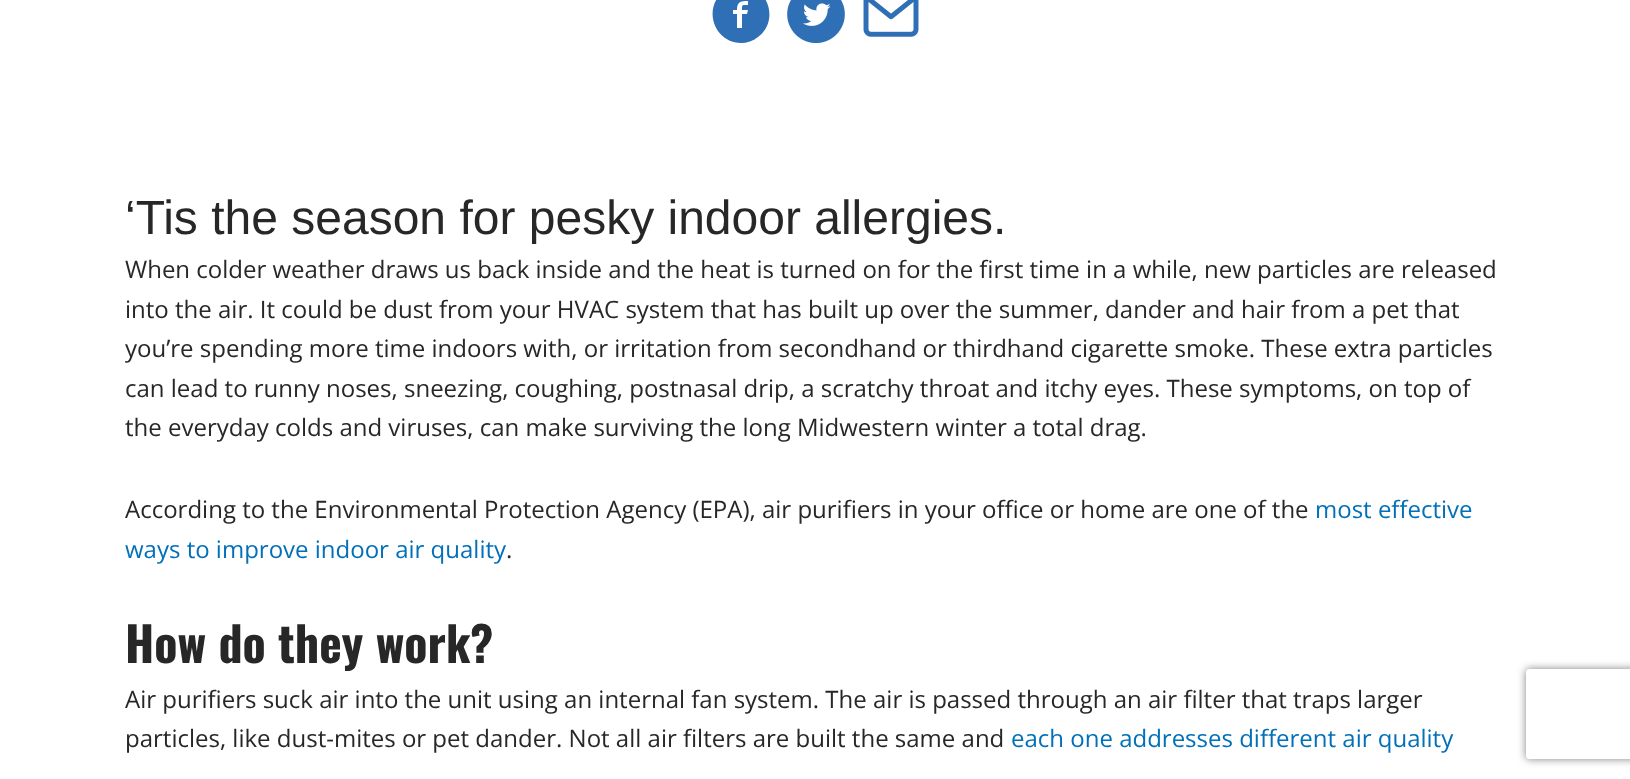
<svg xmlns="http://www.w3.org/2000/svg" width="1630" height="779" viewBox="0 0 1630 779">
  <style>
    .t1 { font: 48px Liberation Sans; fill: #272727; }
    .t2 { font: 24px Open Sans; fill: #272727; }
    .t3 { font: 24px Open Sans; fill: #0170b9; }
    .t4 { font: bold 48px Oswald; fill: #272727; }
  </style>
  <defs>
    <clipPath id="clip1"><path d="M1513 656H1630V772H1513ZM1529 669H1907C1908.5 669 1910 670.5 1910 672V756C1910 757.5 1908.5 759 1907 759H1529C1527.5 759 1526 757.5 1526 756V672C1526 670.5 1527.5 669 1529 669Z" clip-rule="evenodd"/></clipPath>
  </defs>
  <rect width="100%" height="100%" fill="#fff"/>
  <path d="M741-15C735-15 729-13 724-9C702 8 714 43 741 43C747 43 753 41 758 37C780 21 768-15 741-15ZM748 5C742 5 742 4 742 10H748L747 14H742V28H737V14H733V10H737C737 2 740 1 748 1Z" fill="#2f6fb6"/>
  <image x="787" y="0" width="58" height="44" href="images/1.png"/>
  <image x="863" y="0" width="56" height="37" href="images/2.png"/>
  <text x="125" y="234" class="t1">‘Tis the season for pesky indoor allergies.</text>
  <text x="125" y="278" class="t2">When colder weather draws us back inside and the heat is turned on for the first time in a while, new particles are released</text>
  <text x="125" y="318" class="t2">into the air. It could be dust from your HVAC system that has built up over the summer, dander and hair from a pet that</text>
  <text x="125" y="357" class="t2">you’re spending more time indoors with, or irritation from secondhand or thirdhand cigarette smoke. These extra particles</text>
  <text x="125" y="397" class="t2">can lead to runny noses, sneezing, coughing, postnasal drip, a scratchy throat and itchy eyes. These symptoms, on top of</text>
  <text x="125" y="436" class="t2">the everyday colds and viruses, can make surviving the long Midwestern winter a total drag.</text>
  <text x="125" y="518" class="t2">According to the Environmental Protection Agency (EPA), air purifiers in your office or home are one of the</text>
  <text x="1315" y="518" class="t3">most effective</text>
  <text x="125" y="558" class="t3">ways to improve indoor air quality</text>
  <text x="506" y="558" class="t2">.</text>
  <text x="125" y="663" class="t4">How do they work?</text>
  <text x="125" y="708" class="t2">Air purifiers suck air into the unit using an internal fan system. The air is passed through an air filter that traps larger</text>
  <text x="125" y="747" class="t2">particles, like dust-mites or pet dander. Not all air filters are built the same and</text>
  <text x="1011" y="747" class="t3">each one addresses different air quality</text>
  <g clip-path="url(#clip1)">
    <rect x="1526" y="669" width="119" height="90" rx="3" fill="#808080" filter="blur(4px)"/>
  </g>
</svg>
